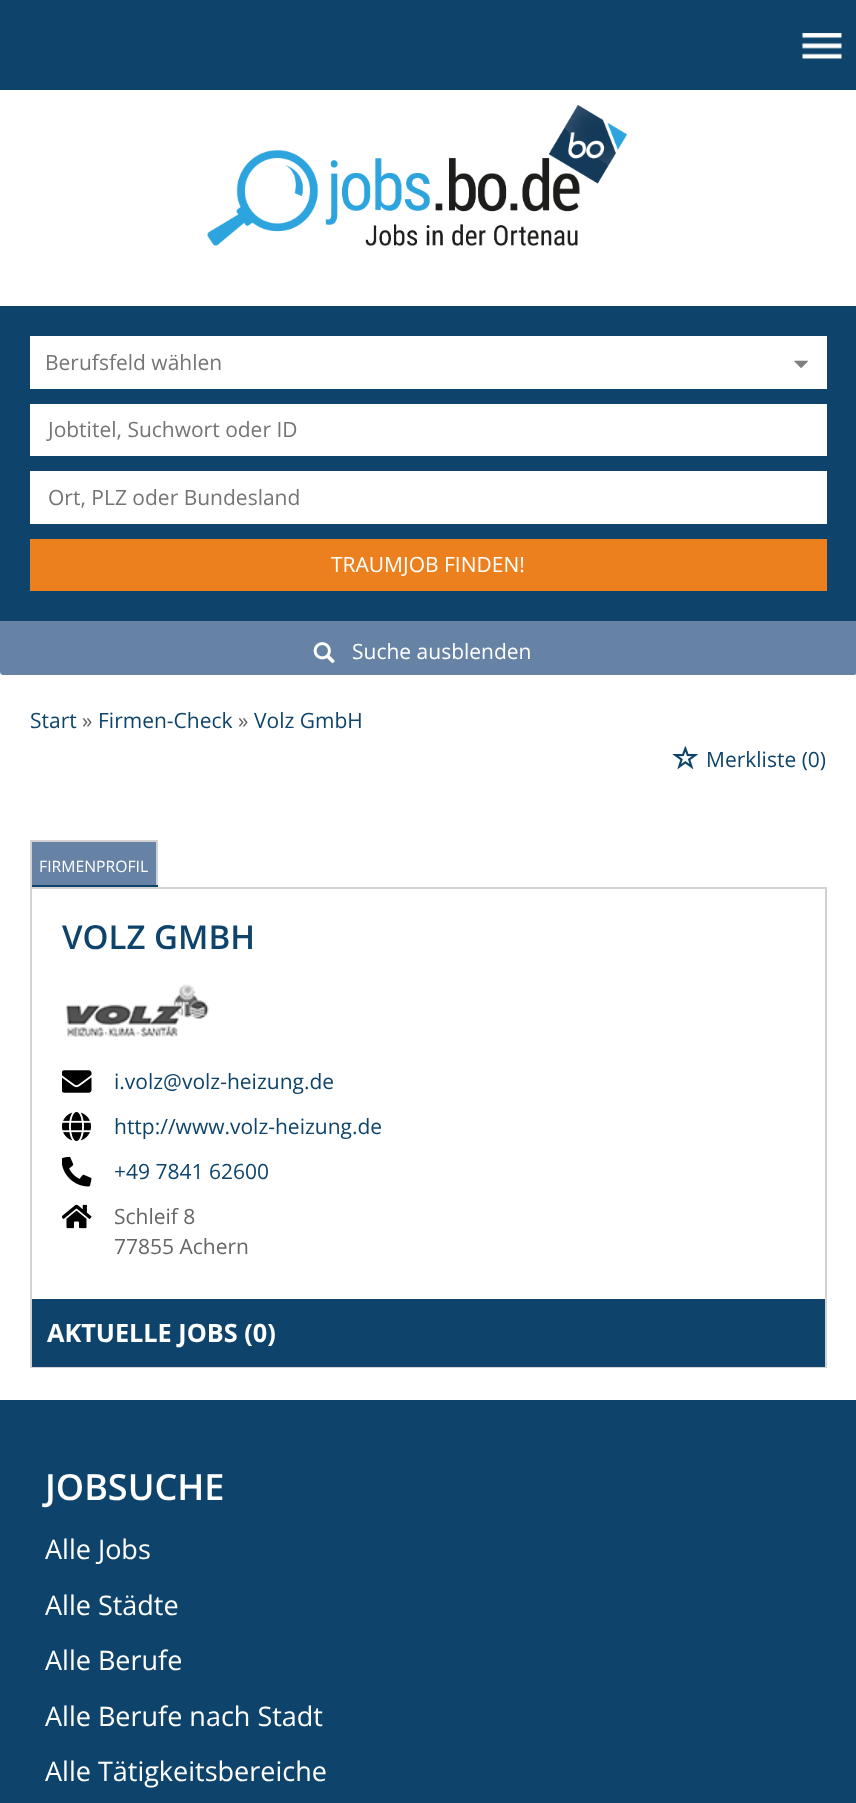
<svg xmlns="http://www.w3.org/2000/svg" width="856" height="1803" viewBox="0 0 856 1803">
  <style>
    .t1 { font: 21px Open Sans; fill: #757575; }
    .t2 { font: 21px Open Sans; fill: #fff; }
    .t3 { font: 21px Open Sans; fill: #0e446b; }
    .t4 { font: 21px Open Sans; fill: #666; }
    .t5 { font: 15.75px Open Sans; fill: #fff; }
    .t6 { font: 600 33px Open Sans; fill: #0e446b; }
    .t7 { font: bold 25.25px Open Sans; fill: #fff; }
    .t8 { font: 600 36px Open Sans; fill: #fff; }
    .t9 { font: 27px Open Sans; fill: #fff; }
  </style>
  <rect width="100%" height="100%" fill="#fff"/>
  <rect x="0" y="0" width="856" height="90" fill="#0e446b"/>
  <image x="802" y="33" width="40" height="26" href="images/1.png"/>
  <image x="207" y="105" width="420" height="141" href="images/2.png"/>
  <rect x="0" y="306" width="856" height="315" fill="#0e446b"/>
  <rect x="30" y="336" width="797" height="53" fill="#fff"/>
  <text x="45" y="370" class="t1">Berufsfeld wählen</text>
  <image x="794" y="360" width="14" height="8" href="images/3.png"/>
  <rect x="30" y="404" width="797" height="52" fill="#fff"/>
  <text x="48" y="437" class="t1">Jobtitel, Suchwort oder ID</text>
  <rect x="30" y="471" width="797" height="53" fill="#fff"/>
  <text x="48" y="505" class="t1">Ort, PLZ oder Bundesland</text>
  <rect x="30" y="539" width="797" height="52" fill="#ec801f"/>
  <text x="331" y="572" class="t2">TRAUMJOB FINDEN!</text>
  <path d="M0 621H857V672C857 673.5 855.5 675 854 675H3C1.5 675 0 673.5 0 672Z" fill="#6683a5"/>
  <image x="313" y="642" width="22" height="22" href="images/4.png"/>
  <text x="352" y="659" class="t2">Suche ausblenden</text>
  <text x="30" y="728" class="t3">Start</text>
  <text x="82" y="728" class="t4">»</text>
  <text x="98" y="728" class="t3">Firmen-Check</text>
  <text x="238" y="728" class="t4">»</text>
  <text x="254" y="728" class="t3">Volz GmbH</text>
  <image x="672" y="746" width="26" height="23" href="images/5.png"/>
  <text x="706" y="767" class="t3">Merkliste (0)</text>
  <rect x="32" y="842" width="124" height="43" fill="#6683a5"/>
  <rect x="30" y="840" width="128" height="2" fill="#d2d2d2"/>
  <rect x="156" y="840" width="2" height="47" fill="#d2d2d2"/>
  <rect x="30" y="885" width="128" height="2" fill="#0e446b"/>
  <rect x="30" y="840" width="2" height="47" fill="#d2d2d2"/>
  <text x="39" y="872" class="t5">FIRMENPROFIL</text>
  <rect x="31" y="888" width="795" height="479" fill="none" stroke="#d2d2d2" stroke-width="2"/>
  <text x="62" y="949" class="t6">VOLZ GMBH</text>
  <image x="65" y="984" width="144" height="53" href="images/6.png"/>
  <image x="62" y="1070" width="30" height="23" href="images/7.png"/>
  <text x="114" y="1089" class="t3">i.volz@volz-heizung.de</text>
  <image x="62" y="1112" width="29" height="29" href="images/8.png"/>
  <text x="114" y="1134" class="t3">http://www.volz-heizung.de</text>
  <image x="62" y="1157" width="30" height="30" href="images/9.png"/>
  <text x="114" y="1179" class="t3">+49 7841 62600</text>
  <image x="62" y="1204" width="30" height="25" href="images/10.png"/>
  <text x="114" y="1224" class="t4">Schleif 8</text>
  <text x="114" y="1254" class="t4">77855 Achern</text>
  <rect x="32" y="1299" width="793" height="68" fill="#0e446b"/>
  <text x="47" y="1342" class="t7">AKTUELLE JOBS (0)</text>
  <rect x="0" y="1400" width="856" height="403" fill="#0e446b"/>
  <text x="45" y="1500" class="t8">JOBSUCHE</text>
  <text x="45" y="1559" class="t9">Alle Jobs</text>
  <text x="45" y="1615" class="t9">Alle Städte</text>
  <text x="45" y="1670" class="t9">Alle Berufe</text>
  <text x="45" y="1726" class="t9">Alle Berufe nach Stadt</text>
  <text x="45" y="1781" class="t9">Alle Tätigkeitsbereiche</text>
</svg>
